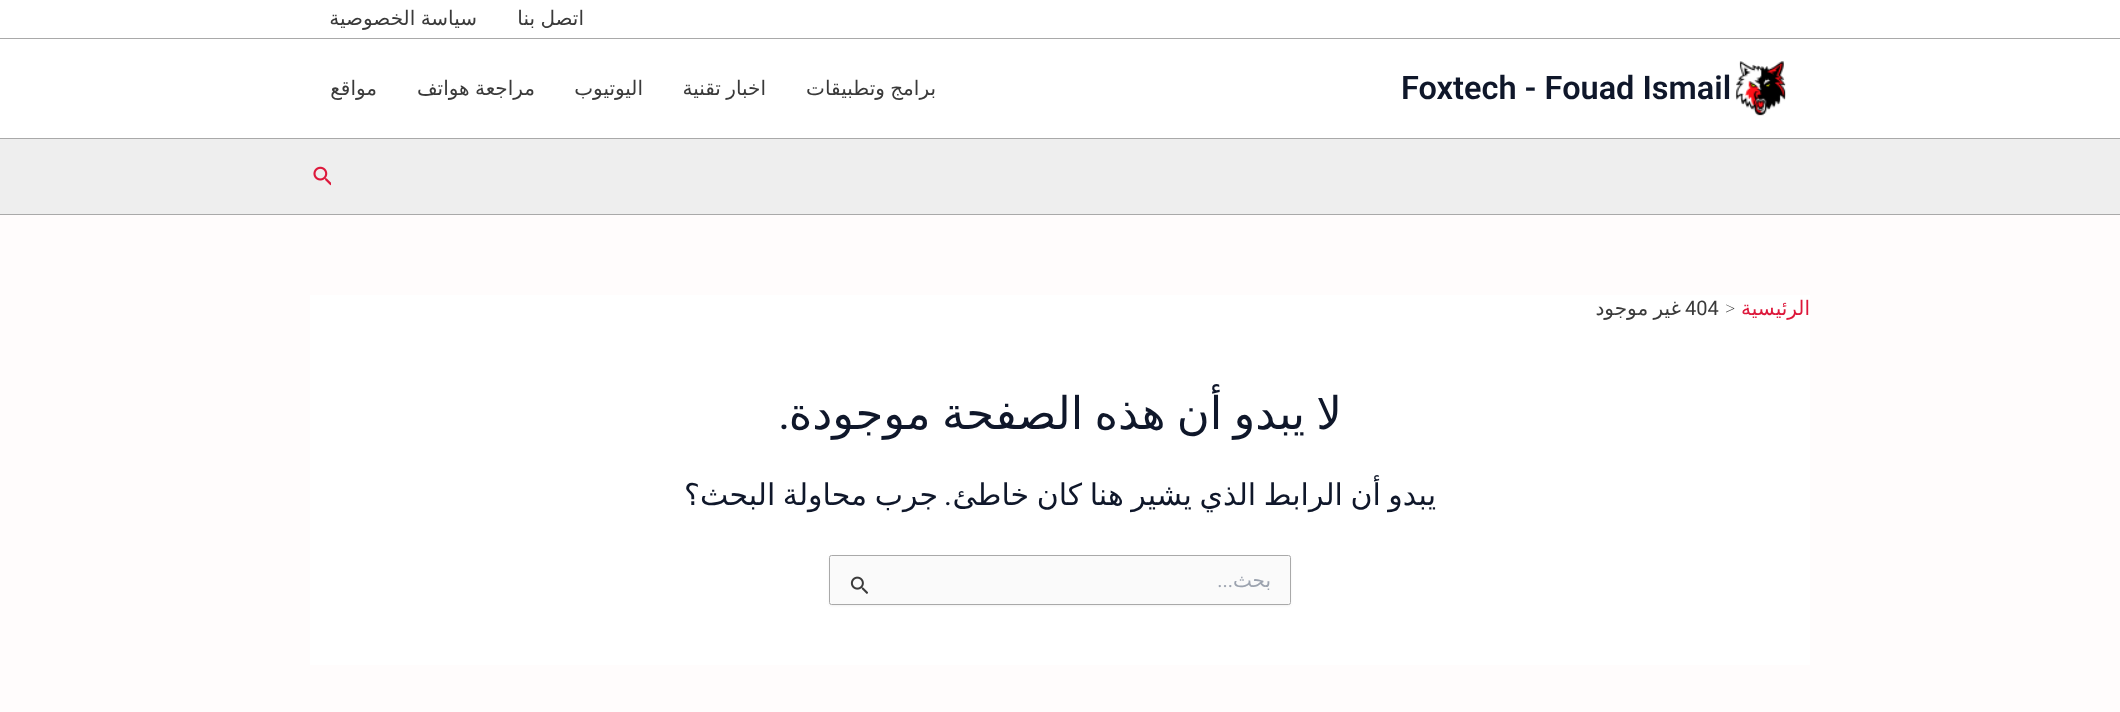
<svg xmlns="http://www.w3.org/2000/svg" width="2120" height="712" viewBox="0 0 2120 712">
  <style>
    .t1 { font: 20px DejaVu Sans; direction: rtl; fill: #3a3a3a; }
    .t2 { font: 600 32.5px Roboto; fill: #0f172a; }
    .t3 { font: 20px DejaVu Sans; direction: rtl; fill: #dd183b; }
    .t4 { font: 100 20px Roboto; fill: #3a3a3a; }
    .t5 { font: 20px Roboto; fill: #3a3a3a; }
    .t6 { font: 45px DejaVu Sans; direction: rtl; fill: #0f172a; }
    .t7 { font: 45px Roboto; direction: rtl; fill: #0f172a; }
    .t8 { font: 30px DejaVu Sans; direction: rtl; fill: #0f172a; }
    .t9 { font: 30px Roboto; direction: rtl; fill: #0f172a; }
    .t10 { font: 20px DejaVu Sans; direction: rtl; fill: #9ca3af; }
    .t11 { font: 20px Roboto; direction: rtl; fill: #9ca3af; }
  </style>
  <rect width="100%" height="100%" fill="#fffcfc"/>
  <rect x="0" y="0" width="2120" height="38" fill="#fff"/>
  <rect x="0" y="38" width="2120" height="1" fill="#a9a9a9"/>
  <text x="584" y="25" word-spacing="-1" class="t1">اتصل بنا</text>
  <text x="477" y="25" word-spacing="-1" class="t1">سياسة الخصوصية</text>
  <rect x="0" y="39" width="2120" height="99" fill="#fff"/>
  <rect x="0" y="138" width="2120" height="1" fill="#a9a9a9"/>
  <image x="1735" y="61" width="51" height="55" href="images/1.png"/>
  <text x="1401" y="99" class="t2">Foxtech - Fouad Ismail</text>
  <text x="936" y="95" word-spacing="-1" class="t1">برامج وتطبيقات</text>
  <text x="766" y="95" word-spacing="-1" class="t1">اخبار تقنية</text>
  <text x="643" y="95" class="t1">اليوتيوب</text>
  <text x="535" y="95" word-spacing="-1" class="t1">مراجعة هواتف</text>
  <text x="377" y="95" class="t1">مواقع</text>
  <rect x="0" y="139" width="2120" height="75" fill="#eee"/>
  <rect x="0" y="214" width="2120" height="1" fill="#a9a9a9"/>
  <image x="313" y="166" width="18" height="20" href="images/2.png"/>
  <rect x="310" y="295" width="1500" height="370" fill="#fff"/>
  <text x="1810" y="315" class="t3">الرئيسية</text>
  <text x="1725" y="315" class="t4">&gt;</text>
  <text x="1685" y="315" class="t5">404</text>
  <text x="1681" y="315" word-spacing="-1" class="t1">غير موجود</text>
  <text x="1342" y="429" word-spacing="-3" class="t6">لا يبدو أن هذه الصفحة موجودة</text>
  <text x="790" y="429" class="t7">.</text>
  <text x="1436" y="505" word-spacing="-2" class="t8">يبدو أن الرابط الذي يشير هنا كان خاطئ</text>
  <text x="952" y="505" class="t9">.</text>
  <text x="938" y="505" word-spacing="-2" class="t8">جرب محاولة البحث؟</text>
  <rect x="829" y="556" width="462" height="50" rx="2.5" fill="#0000000d" filter="blur(1px)"/>
  <rect x="829.5" y="555.5" width="461" height="49" rx="2" fill="#fafafa" stroke="#a9a9a9"/>
  <text x="1271" y="587" class="t10">بحث</text>
  <text x="1233" y="587" class="t11">...</text>
  <image x="850" y="576" width="18" height="18" href="images/3.png"/>
</svg>
